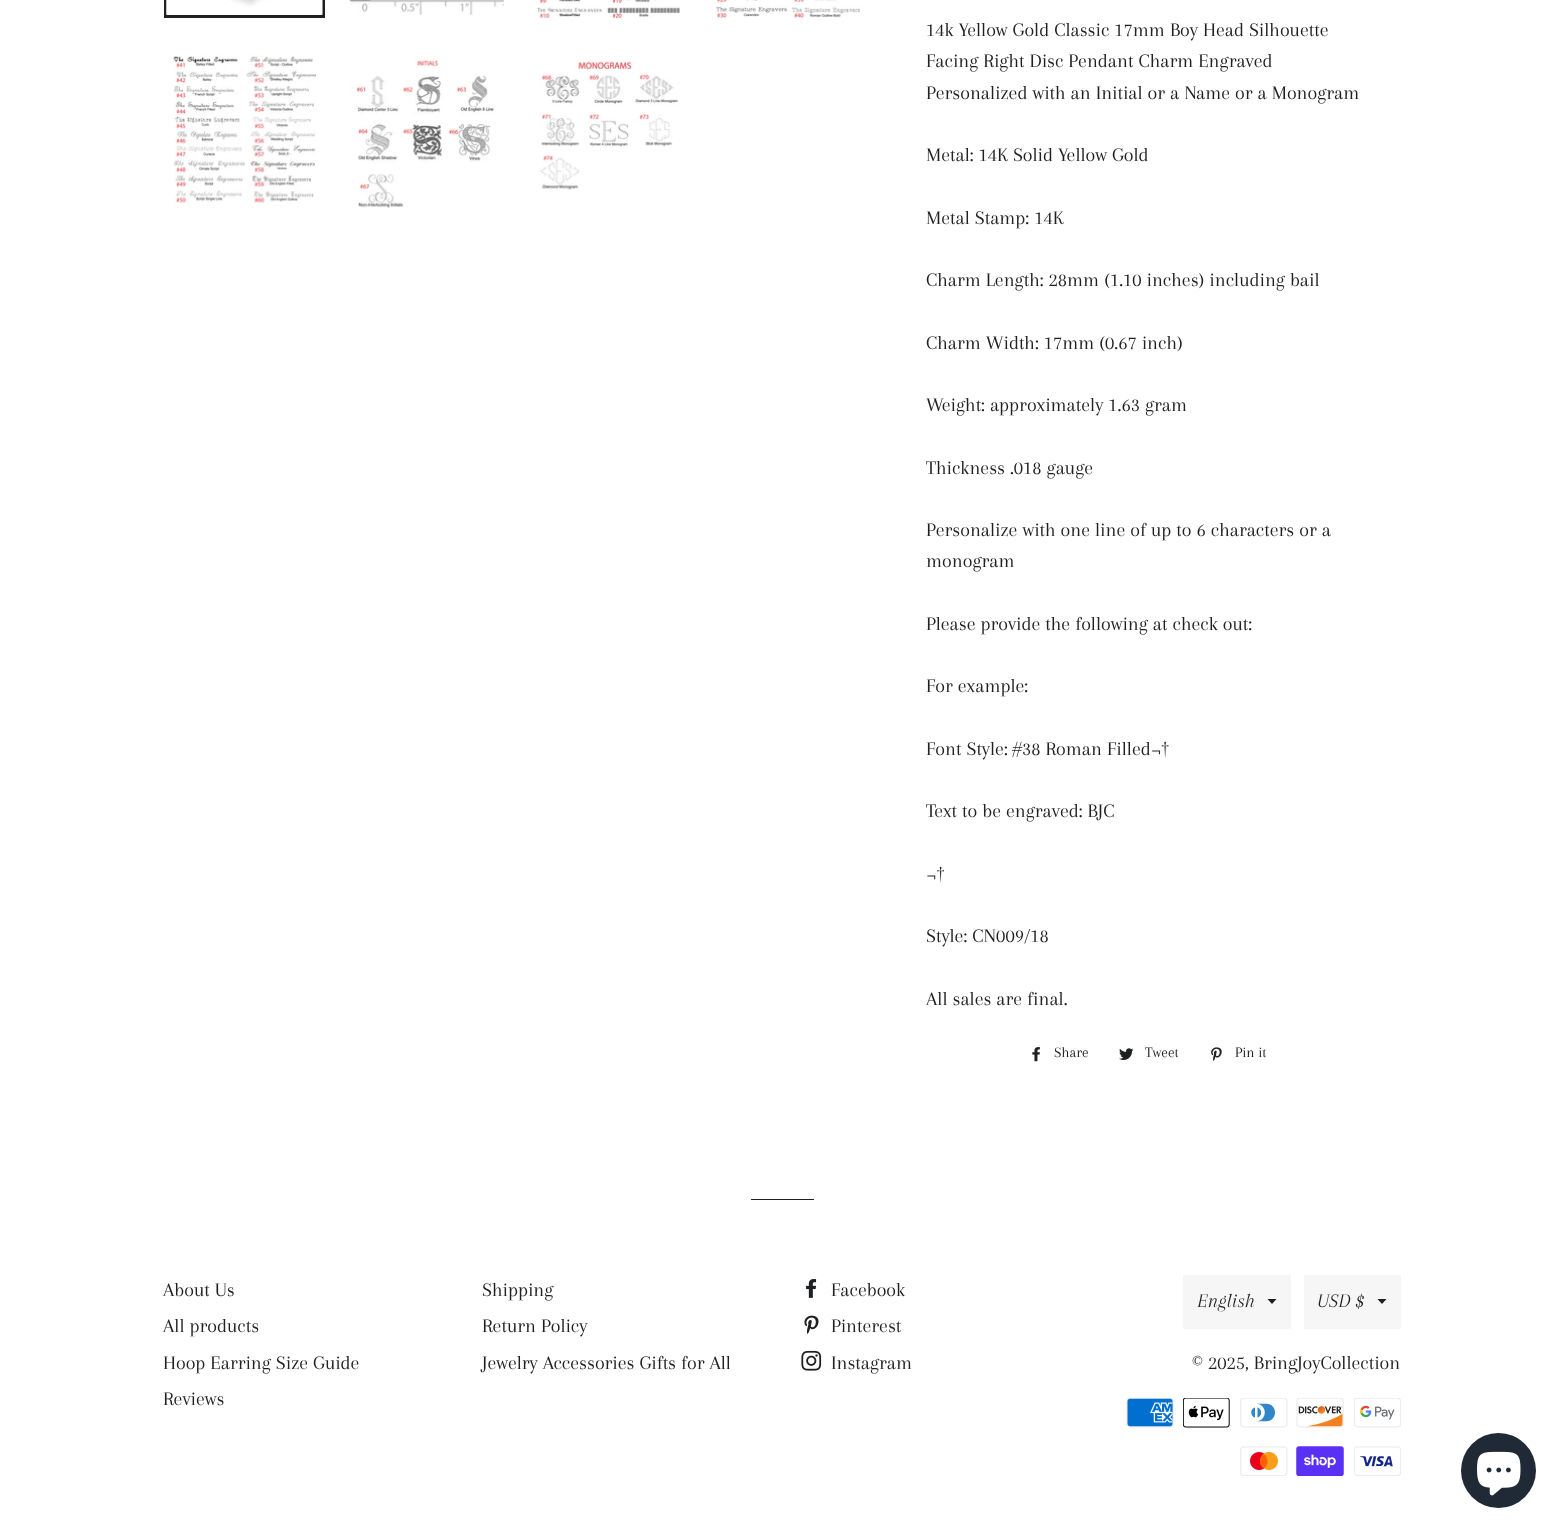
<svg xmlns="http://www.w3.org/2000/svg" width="1563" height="1533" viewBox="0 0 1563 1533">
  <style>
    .t1 { font: 20px Arapey; fill: #1f2021; }
    .t2 { font: 15px Arapey; fill: #1f2021; }
    .t3 { font: italic 20px Arapey; fill: #1f2021; }
  </style>
  <rect width="100%" height="100%" fill="#fff"/>
  <rect x="165.5" y="-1.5" width="158" height="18" fill="none" stroke="#1f2021" stroke-width="3"/>
  <image x="166" y="0" width="157" height="15" href="images/1.png"/>
  <image x="349" y="0" width="155" height="15" href="images/2.png"/>
  <image x="536" y="0" width="144" height="19" href="images/3.png"/>
  <image x="715" y="0" width="146" height="19" href="images/4.png"/>
  <image x="173" y="55" width="144" height="148" href="images/5.png"/>
  <image x="350" y="58" width="145" height="150" href="images/6.png"/>
  <image x="540" y="61" width="139" height="129" href="images/7.png"/>
  <text x="926" y="36" class="t1">14k Yellow Gold Classic 17mm Boy Head Silhouette</text>
  <text x="926" y="67" class="t1">Facing Right Disc Pendant Charm Engraved</text>
  <text x="926" y="99" class="t1">Personalized with an Initial or a Name or a Monogram</text>
  <text x="926" y="161" class="t1">Metal: 14K Solid Yellow Gold</text>
  <text x="926" y="224" class="t1">Metal Stamp: 14K</text>
  <text x="926" y="286" class="t1">Charm Length: 28mm (1.10 inches) including bail</text>
  <text x="926" y="349" class="t1">Charm Width: 17mm (0.67 inch)</text>
  <text x="926" y="411" class="t1">Weight: approximately 1.63 gram</text>
  <text x="926" y="474" class="t1">Thickness .018 gauge</text>
  <text x="926" y="536" class="t1">Personalize with one line of up to 6 characters or a</text>
  <text x="926" y="567" class="t1">monogram</text>
  <text x="926" y="630" class="t1">Please provide the following at check out:</text>
  <text x="926" y="692" class="t1">For example:</text>
  <text x="926" y="755" class="t1">Font Style: #38 Roman Filled¬†</text>
  <text x="926" y="817" class="t1">Text to be engraved: BJC</text>
  <text x="926" y="880" class="t1">¬†</text>
  <text x="926" y="942" class="t1">Style: CN009/18</text>
  <text x="926" y="1005" class="t1">All sales are final.</text>
  <image x="1032" y="1047" width="8" height="15" href="images/8.png"/>
  <text x="1054" y="1057" class="t2">Share</text>
  <image x="1119" y="1048" width="15" height="12" href="images/9.png"/>
  <text x="1145" y="1057" class="t2">Tweet</text>
  <image x="1211" y="1047" width="11" height="14" href="images/10.png"/>
  <text x="1235" y="1057" class="t2">Pin it</text>
  <rect x="751" y="1199" width="63" height="1" fill="#1f2021"/>
  <text x="163" y="1296" class="t1">About Us</text>
  <text x="163" y="1332" class="t1">All products</text>
  <text x="163" y="1369" class="t1">Hoop Earring Size Guide</text>
  <text x="163" y="1405" class="t1">Reviews</text>
  <text x="482" y="1296" class="t1">Shipping</text>
  <text x="482" y="1332" class="t1">Return Policy</text>
  <text x="482" y="1369" class="t1">Jewelry Accessories Gifts for All</text>
  <image x="806" y="1279" width="11" height="19" href="images/11.png"/>
  <text x="831" y="1296" class="t1">Facebook</text>
  <image x="804" y="1315" width="15" height="19" href="images/12.png"/>
  <text x="831" y="1332" class="t1">Pinterest</text>
  <image x="801" y="1350" width="21" height="21" href="images/13.png"/>
  <text x="831" y="1369" class="t1">Instagram</text>
  <rect x="1183" y="1275" width="108" height="54" fill="#f6f6f6"/>
  <path d="M1267.5 1299L1272 1304L1276.5 1299Z" fill="#1f2021"/>
  <text x="1197" y="1307" class="t3">English</text>
  <rect x="1304" y="1275" width="97" height="54" fill="#f6f6f6"/>
  <path d="M1377.5 1299L1382 1304L1386.5 1299Z" fill="#1f2021"/>
  <text x="1317" y="1307" class="t3">USD $</text>
  <text x="1192" y="1369" class="t1">© 2025, BringJoyCollection</text>
  <image x="1126" y="1398" width="48" height="30" href="images/14.png"/>
  <image x="1183" y="1398" width="47" height="30" href="images/15.png"/>
  <image x="1240" y="1398" width="48" height="30" href="images/16.png"/>
  <image x="1296" y="1398" width="48" height="30" href="images/17.png"/>
  <image x="1354" y="1398" width="47" height="30" href="images/18.png"/>
  <image x="1240" y="1446" width="48" height="30" href="images/19.png"/>
  <image x="1296" y="1446" width="48" height="30" href="images/20.png"/>
  <image x="1354" y="1446" width="47" height="30" href="images/21.png"/>
  <circle cx="1498.5" cy="1470.5" r="37.5" fill="#202a36"/>
  <image x="1477" y="1451" width="44" height="45" href="images/22.png"/>
</svg>
